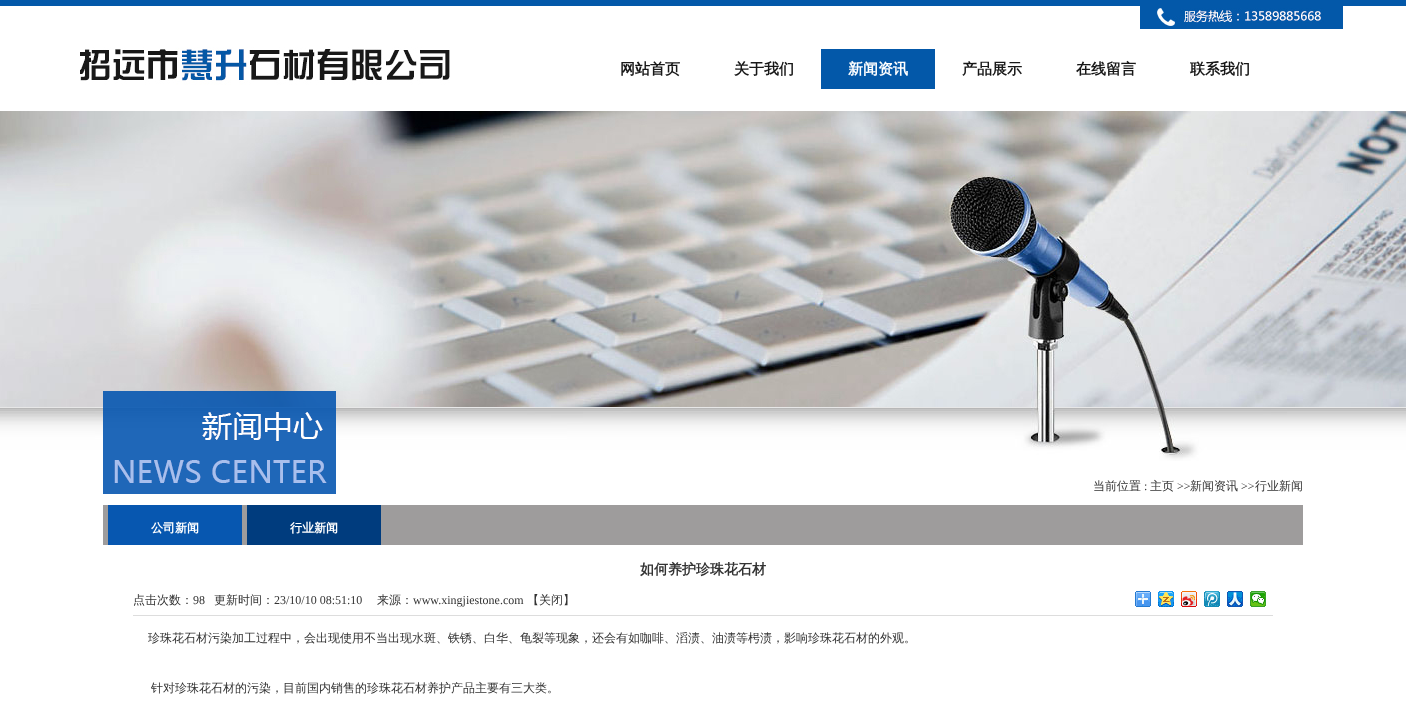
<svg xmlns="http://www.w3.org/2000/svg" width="1406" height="707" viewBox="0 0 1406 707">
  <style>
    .t1 { font: bold 15px WenQuanYi Zen Hei; fill: #181818; }
    .t2 { font: bold 15px WenQuanYi Zen Hei; fill: #fff; }
    .t3 { font: 500 12px WenQuanYi Zen Hei; fill: #333; }
    .t4 { font: 12px Liberation Serif; fill: #333; }
    .t5 { font: bold 12px WenQuanYi Zen Hei; fill: #fff; }
    .t6 { font: bold 14px WenQuanYi Zen Hei; fill: #333; }
  </style>
  <rect width="100%" height="100%" fill="#fff"/>
  <rect x="0" y="0" width="1406" height="6" fill="#0358a9"/>
  <image x="80" y="47" width="370" height="38" href="images/1.png"/>
  <image x="1140" y="6" width="203" height="23" href="images/2.png"/>
  <text x="620" y="74" class="t1">网站首页</text>
  <text x="734" y="74" class="t1">关于我们</text>
  <rect x="821" y="49" width="114" height="40" fill="#0358a9"/>
  <text x="848" y="74" class="t2">新闻资讯</text>
  <text x="962" y="74" class="t1">产品展示</text>
  <text x="1076" y="74" class="t1">在线留言</text>
  <text x="1190" y="74" class="t1">联系我们</text>
  <image x="0" y="111" width="1406" height="350" href="images/3.png"/>
  <image x="103" y="391" width="233" height="103" href="images/4.png"/>
  <text x="1093" y="490" class="t3">当前位置</text>
  <text x="1144" y="490" class="t4">:</text>
  <text x="1150" y="490" class="t3">主页</text>
  <text x="1177" y="490" class="t4">&gt;&gt;</text>
  <text x="1190" y="490" class="t3">新闻资讯</text>
  <text x="1241" y="490" class="t4">&gt;&gt;</text>
  <text x="1255" y="490" class="t3">行业新闻</text>
  <rect x="103" y="505" width="1200" height="40" fill="#9e9c9c"/>
  <rect x="108" y="505" width="134" height="40" fill="#0757b0"/>
  <text x="151" y="532" class="t5">公司新闻</text>
  <rect x="247" y="505" width="134" height="40" fill="#003c7e"/>
  <text x="290" y="532" class="t5">行业新闻</text>
  <text x="640" y="574" class="t6">如何养护珍珠花石材</text>
  <rect x="133" y="615" width="1140" height="1" fill="#ddd"/>
  <text x="133" y="604" class="t3">点击次数：</text>
  <text x="193" y="604" class="t4">98</text>
  <text x="214" y="604" class="t3">更新时间：</text>
  <text x="274" y="604" class="t4">23/10/10 08:51:10</text>
  <text x="377" y="604" class="t3">来源：</text>
  <text x="413" y="604" class="t4">www.xingjiestone.com</text>
  <text x="527" y="604" class="t3">【关闭】</text>
  <image x="1135" y="591" width="16" height="16" href="images/5.png"/>
  <image x="1158" y="591" width="16" height="16" href="images/6.png"/>
  <image x="1181" y="591" width="16" height="16" href="images/7.png"/>
  <image x="1204" y="591" width="16" height="16" href="images/8.png"/>
  <image x="1227" y="591" width="16" height="16" href="images/9.png"/>
  <image x="1250" y="591" width="16" height="16" href="images/10.png"/>
  <text x="148" y="642" class="t3">珍珠花石材污染加工过程中，会出现使用不当出现水斑、铁锈、白华、龟裂等现象，还会有如咖啡、滔渍、油渍等枵渍，影响珍珠花石材的外观。</text>
  <text x="151" y="692" class="t3">针对珍珠花石材的污染，目前国内销售的珍珠花石材养护产品主要有三大类。</text>
</svg>
